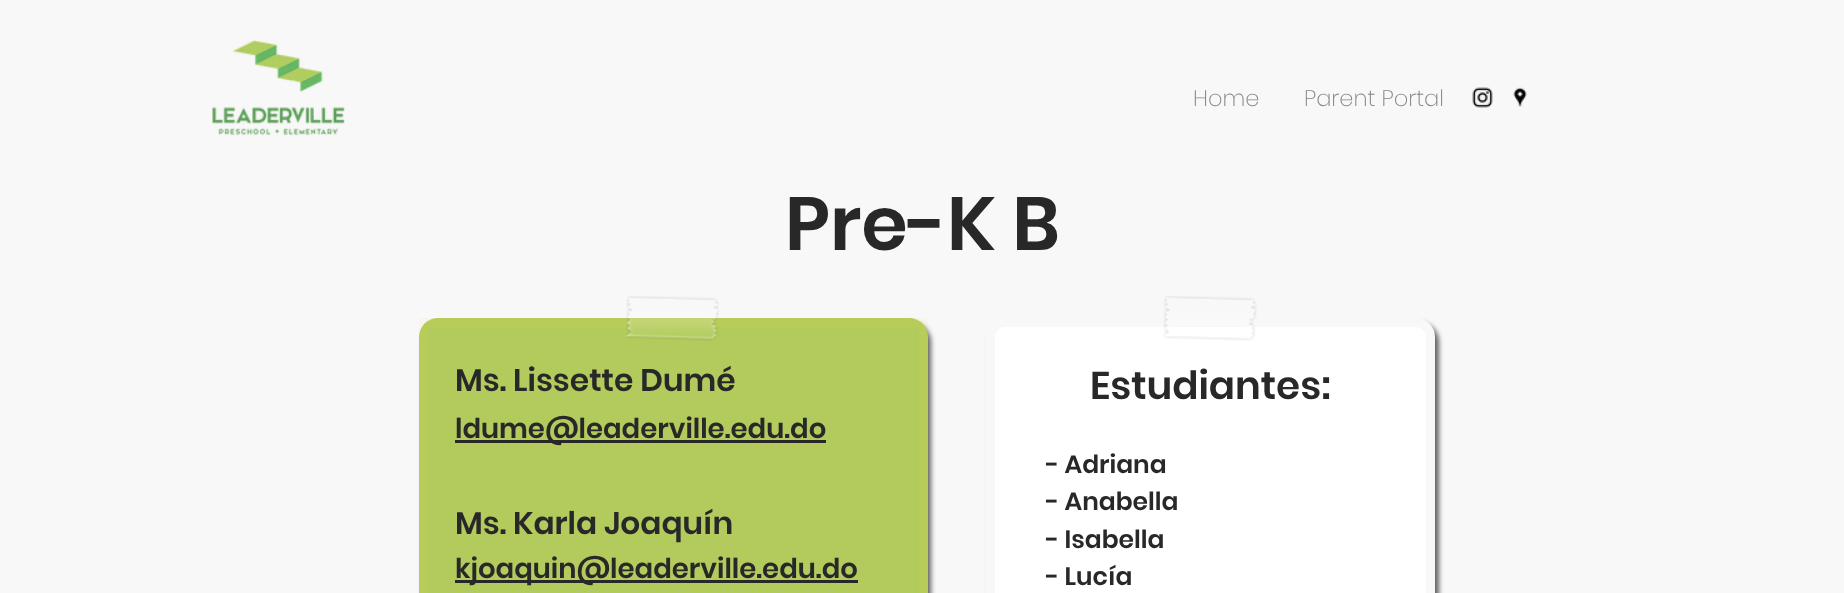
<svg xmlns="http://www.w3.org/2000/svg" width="1844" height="593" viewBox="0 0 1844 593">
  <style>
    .t1 { font: 200 22.5px Poppins; fill: #858585; }
    .t2 { font: 600 75px Poppins; fill: #282828; }
    .t3 { font: 600 31.25px Poppins; fill: #282828; }
    .t4 { font: 600 27.5px Poppins; fill: #282828; }
    .t5 { font: 600 38.75px Poppins; fill: #282828; }
    .t6 { font: 600 25px Poppins; fill: #282828; }
  </style>
  <rect width="100%" height="100%" fill="#f8f8f8"/>
  <image x="212" y="40" width="133" height="96" href="images/1.png"/>
  <text x="1193" y="106" class="t1">Home</text>
  <text x="1304" y="106" class="t1">Parent Portal</text>
  <image x="1472" y="87" width="21" height="21" href="images/2.png"/>
  <image x="1513" y="87" width="14" height="20" href="images/3.png"/>
  <text x="785" y="250" class="t2">Pre-K B</text>
  <rect x="423" y="323" width="508" height="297" rx="19" fill="#00000099" filter="blur(2.5px)"/>
  <rect x="419" y="318" width="509" height="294" rx="19" fill="#b3cb5c"/>
  <rect x="423.5" y="322.5" width="500" height="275" fill="none" stroke="#ffdb2d0f" stroke-width="9"/>
  <image x="626" y="296" width="93" height="45" href="images/4.png"/>
  <text x="455" y="391" class="t3">Ms. Lissette Dumé</text>
  <text x="455" y="534" class="t3">Ms. Karla Joaquín</text>
  <rect x="455" y="580" width="403" height="3" fill="#282828"/>
  <text x="455" y="578" class="t4">kjoaquin@leaderville.edu.do</text>
  <rect x="990" y="323" width="449" height="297" rx="19" fill="#00000099" filter="blur(2.5px)"/>
  <rect x="990.5" y="322.5" width="440" height="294" rx="14.5" fill="#fff" stroke="#f8f8f8" stroke-width="9"/>
  <image x="1163" y="296" width="94" height="45" href="images/5.png"/>
  <text x="1090" y="399" class="t5">Estudiantes:</text>
  <text x="1046" y="473" class="t6">- Adriana</text>
  <text x="1046" y="510" class="t6">- Anabella</text>
  <text x="1046" y="548" class="t6">- Isabella</text>
  <text x="1046" y="585" class="t6">- Lucía</text>
  <rect x="455" y="440" width="371" height="3" fill="#282828"/>
  <text x="455" y="438" class="t4">ldume@leaderville.edu.do</text>
</svg>
